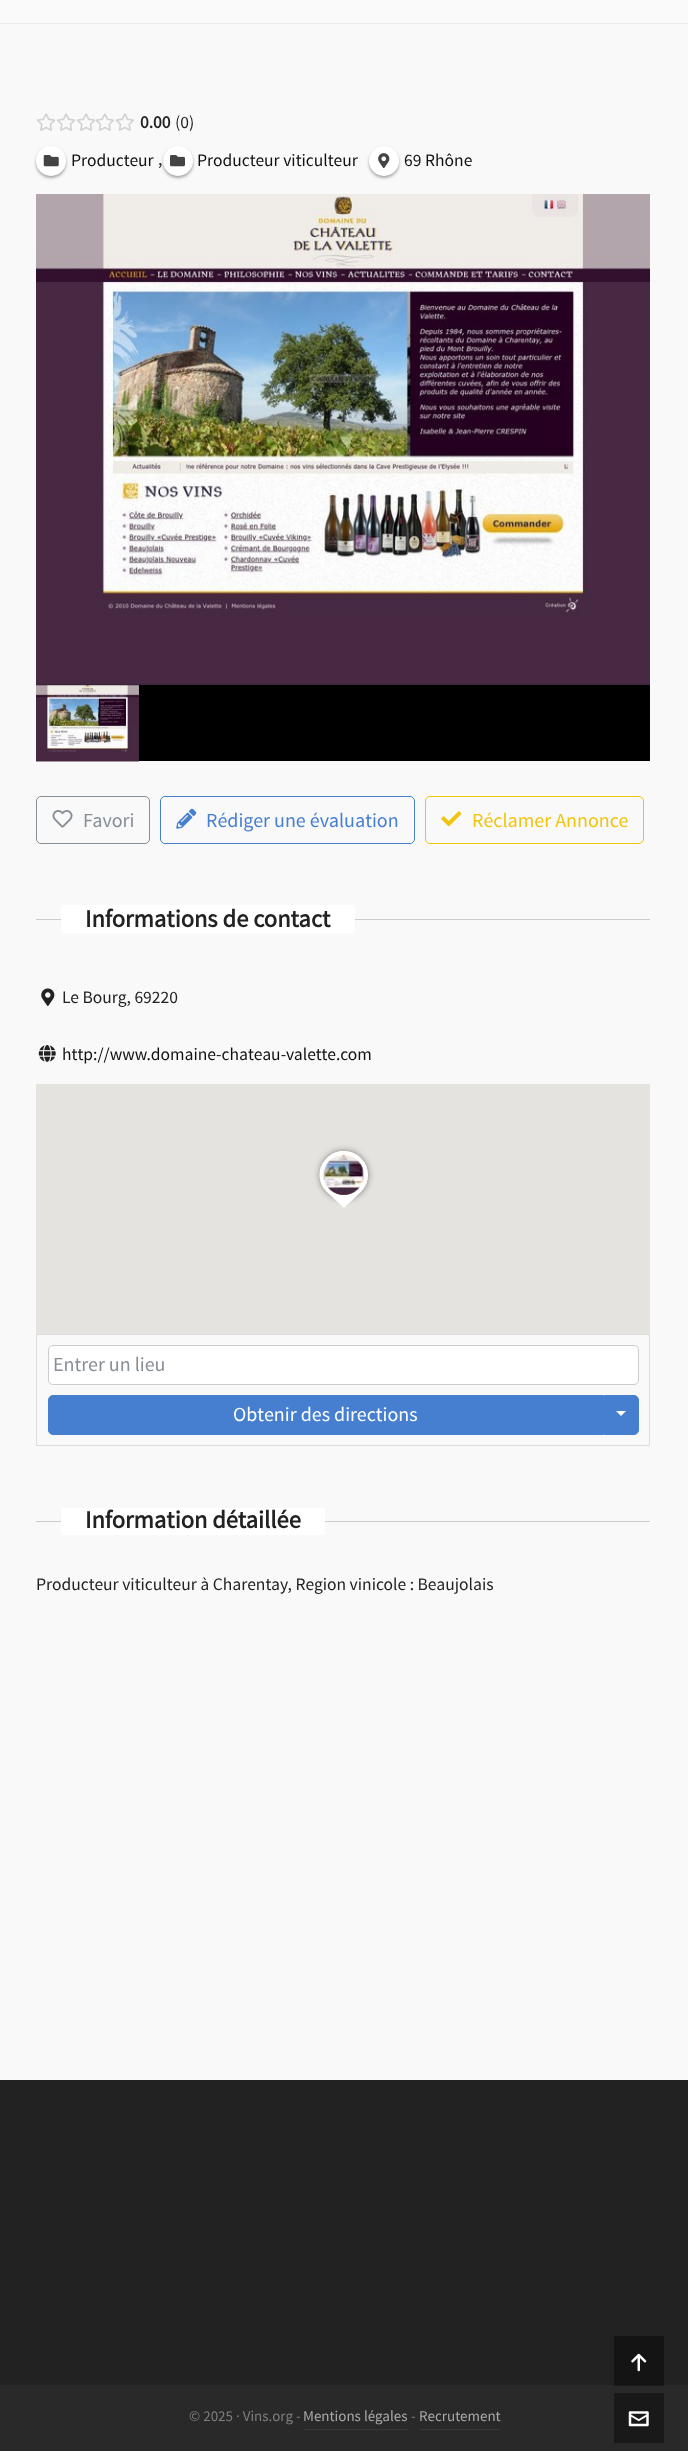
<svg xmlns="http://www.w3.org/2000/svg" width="688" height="2451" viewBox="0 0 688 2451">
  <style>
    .t1 { font: bold 17.5px Source Sans Pro; fill: #222; }
    .t2 { font: 17.5px Source Sans Pro; fill: #222; }
    .t3 { font: 17.5px Source Sans Pro; fill: #111; }
    .t4 { font: 20px Source Sans Pro; fill: #868e96; }
    .t5 { font: 20px Source Sans Pro; fill: #467fcf; }
    .t6 { font: 20px Source Sans Pro; fill: #f1c40f; }
    .t7 { font: bold 24.5px Source Sans Pro; fill: #222; }
    .t8 { font: 20px Source Sans Pro; fill: #fff; }
    .t9 { font: 15px Source Sans Pro; fill: #7f7f7f; }
    .t10 { font: 15px Source Sans Pro; fill: #aaa; }
  </style>
  <rect width="100%" height="100%" fill="#292929"/>
  <rect x="0" y="24" width="688" height="2056" fill="#f9f9f9"/>
  <rect x="0" y="23" width="688" height="1" fill="#ebebeb"/>
  <rect x="0" y="0" width="688" height="23" fill="#fafafa"/>
  <image x="37" y="113" width="19" height="18" href="images/1.png"/>
  <image x="57" y="113" width="19" height="18" href="images/1.png"/>
  <image x="77" y="113" width="19" height="18" href="images/1.png"/>
  <image x="95" y="113" width="19" height="18" href="images/2.png"/>
  <image x="115" y="113" width="19" height="18" href="images/3.png"/>
  <text x="140" y="128" class="t1">0.00</text>
  <text x="175" y="128" class="t2">(0)</text>
  <rect x="36" y="148" width="30" height="30" rx="15" fill="#0000003d" filter="blur(1px)"/>
  <rect x="36" y="148" width="30" height="30" rx="15" fill="#0000001f" filter="blur(2px)"/>
  <circle cx="51" cy="161" r="15" fill="#fff"/>
  <image x="43" y="155" width="16" height="12" href="images/4.png"/>
  <text x="71" y="166" class="t3">Producteur</text>
  <text x="158" y="165" class="t2">,</text>
  <rect x="163" y="148" width="30" height="30" rx="15" fill="#0000003d" filter="blur(1px)"/>
  <rect x="163" y="148" width="30" height="30" rx="15" fill="#0000001f" filter="blur(2px)"/>
  <circle cx="178" cy="161" r="15" fill="#fff"/>
  <image x="170" y="155" width="15" height="12" href="images/5.png"/>
  <text x="197" y="166" class="t3">Producteur viticulteur</text>
  <rect x="369" y="148" width="30" height="30" rx="15" fill="#0000003d" filter="blur(1px)"/>
  <rect x="369" y="148" width="30" height="30" rx="15" fill="#0000001f" filter="blur(2px)"/>
  <circle cx="384" cy="161" r="15" fill="#fff"/>
  <image x="378" y="153" width="12" height="16" href="images/6.png"/>
  <text x="404" y="166" class="t3">69 Rhône</text>
  <rect x="36" y="684" width="614" height="77" fill="#000"/>
  <image x="36" y="194" width="614" height="491" href="images/7.png"/>
  <image x="36" y="685" width="103" height="77" href="images/8.png"/>
  <rect x="36.5" y="796.5" width="113" height="47" rx="4.5" fill="none" stroke="#868e96"/>
  <image x="52" y="810" width="21" height="18" href="images/9.png"/>
  <text x="83" y="827" class="t4">Favori</text>
  <rect x="160.5" y="796.5" width="254" height="47" rx="4.5" fill="none" stroke="#467fcf"/>
  <image x="176" y="808" width="21" height="21" href="images/10.png"/>
  <text x="206" y="827" class="t5">Rédiger une évaluation</text>
  <rect x="425.5" y="796.5" width="218" height="47" rx="4.5" fill="none" stroke="#f1c40f"/>
  <image x="441" y="811" width="21" height="16" href="images/11.png"/>
  <text x="472" y="827" class="t6">Réclamer Annonce</text>
  <rect x="36" y="919" width="614" height="1" fill="#ccc"/>
  <rect x="61" y="905" width="294" height="28" fill="#fff"/>
  <text x="85" y="927" class="t7">Informations de contact</text>
  <image x="41" y="988" width="14" height="18" href="images/12.png"/>
  <text x="62" y="1003" class="t2">Le Bourg, 69220</text>
  <image x="38" y="1045" width="18" height="17" href="images/13.png"/>
  <text x="62" y="1060" class="t3">http://www.domaine-chateau-valette.com</text>
  <rect x="36" y="1084" width="614" height="250" fill="#e5e3df"/>
  <rect x="320" y="1151" width="48" height="48" rx="24" fill="#00000078" filter="blur(3px)"/>
  <path d="M327 1158C345 1140 375 1160 366 1184C362 1192 350 1202 344 1208L327 1192C317 1182 317 1167 327 1158Z" fill="#fff"/>
  <circle cx="344" cy="1175" r="22" fill="#fff" stroke="#fff" stroke-width="4"/>
  <image x="323" y="1155" width="41" height="40" href="images/14.png"/>
  <rect x="36.5" y="1334.5" width="613" height="111" fill="none" stroke="#ddd"/>
  <rect x="48.5" y="1345.5" width="590" height="39" rx="4.5" fill="#fff" stroke="#ccc"/>
  <text x="53" y="1371" class="t4">Entrer un lieu</text>
  <path d="M53 1395.5H603.5V1434.5H53C50.5 1434.5 48.5 1432.5 48.5 1430V1400C48.5 1397.5 50.5 1395.5 53 1395.5Z" fill="#467fcf" stroke="#467fcf"/>
  <text x="233" y="1421" class="t8">Obtenir des directions</text>
  <path d="M604.5 1395.5H634C636.5 1395.5 638.5 1397.5 638.5 1400V1430C638.5 1432.5 636.5 1434.5 634 1434.5H604.5Z" fill="#467fcf" stroke="#467fcf"/>
  <path d="M616 1411H626L621 1416Z" fill="#fff"/>
  <rect x="36" y="1521" width="614" height="1" fill="#ccc"/>
  <rect x="61" y="1508" width="264" height="27" fill="#fff"/>
  <text x="85" y="1528" class="t7">Information détaillée</text>
  <text x="36" y="1590" class="t2">Producteur viticulteur à Charentay, Region vinicole : Beaujolais</text>
  <rect x="0" y="2080" width="688" height="305" fill="#222"/>
  <rect x="614" y="2336" width="50" height="49" fill="#141414"/>
  <image x="631" y="2353" width="16" height="19" href="images/15.png"/>
  <rect x="614" y="2385" width="50" height="1" fill="#191919"/>
  <text x="189" y="2421" class="t9">© 2025 · Vins.org -</text>
  <text x="303" y="2421" class="t10">Mentions légales</text>
  <rect x="304" y="2429" width="104" height="1" fill="#383838"/>
  <text x="411" y="2421" class="t9">-</text>
  <text x="419" y="2421" class="t10">Recrutement</text>
  <rect x="419" y="2429" width="81" height="1" fill="#383838"/>
  <rect x="614" y="2393" width="50" height="50" fill="#191919"/>
  <image x="628" y="2411" width="21" height="16" href="images/16.png"/>
</svg>
